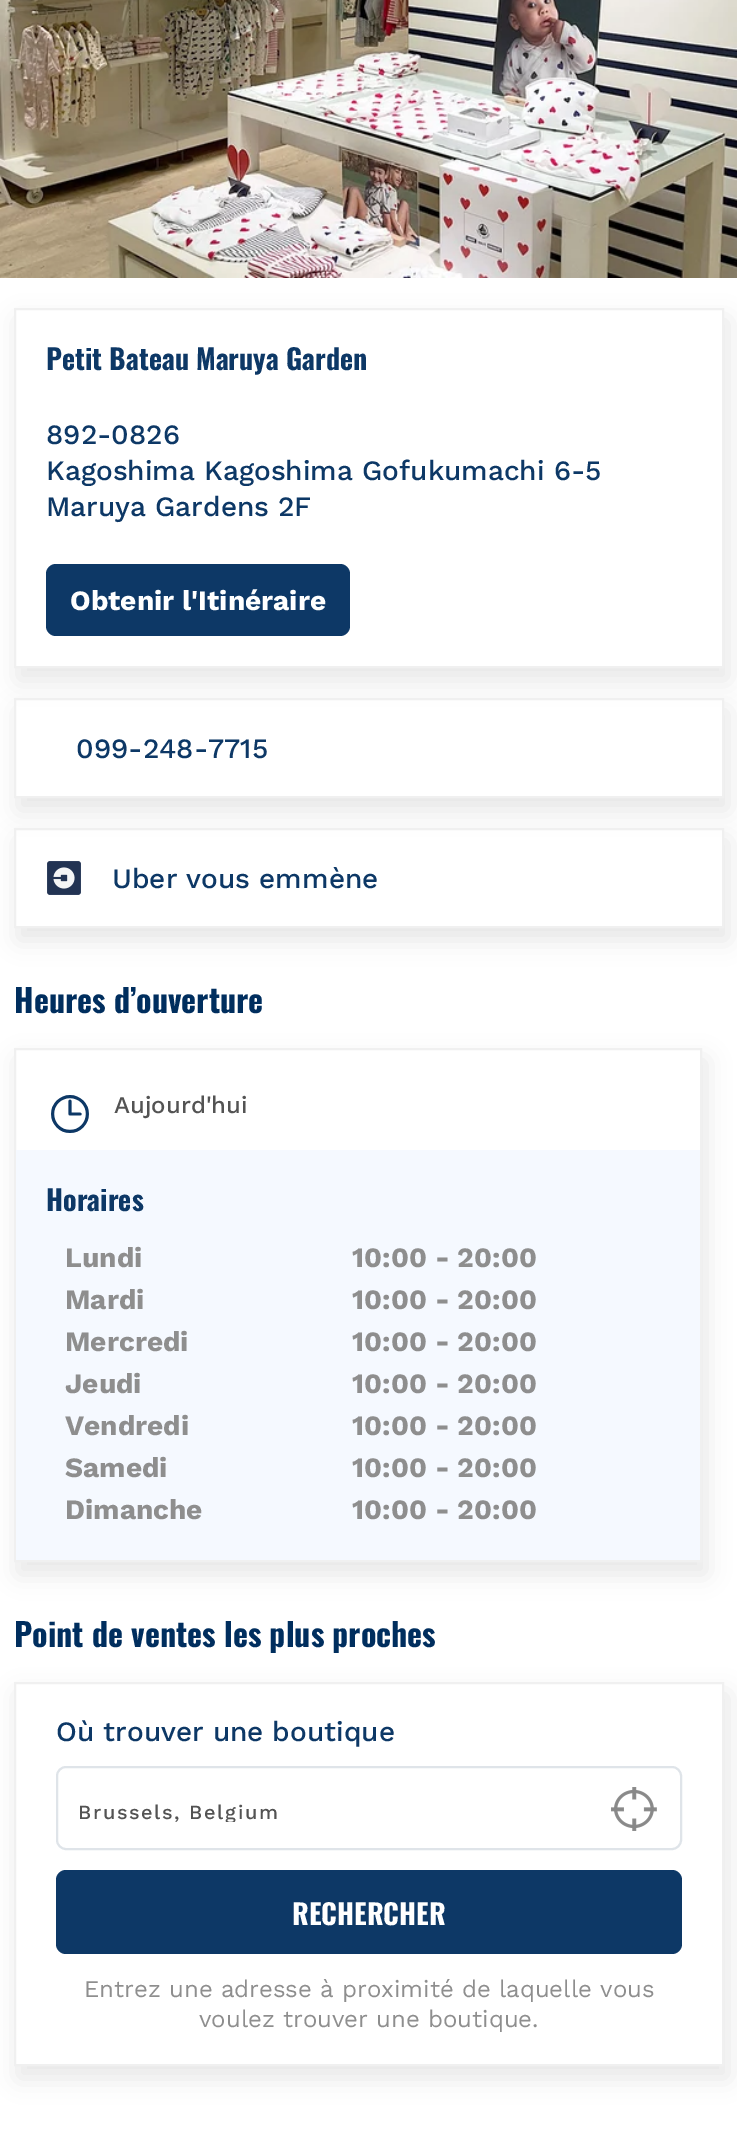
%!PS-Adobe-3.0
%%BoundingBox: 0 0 737 2149
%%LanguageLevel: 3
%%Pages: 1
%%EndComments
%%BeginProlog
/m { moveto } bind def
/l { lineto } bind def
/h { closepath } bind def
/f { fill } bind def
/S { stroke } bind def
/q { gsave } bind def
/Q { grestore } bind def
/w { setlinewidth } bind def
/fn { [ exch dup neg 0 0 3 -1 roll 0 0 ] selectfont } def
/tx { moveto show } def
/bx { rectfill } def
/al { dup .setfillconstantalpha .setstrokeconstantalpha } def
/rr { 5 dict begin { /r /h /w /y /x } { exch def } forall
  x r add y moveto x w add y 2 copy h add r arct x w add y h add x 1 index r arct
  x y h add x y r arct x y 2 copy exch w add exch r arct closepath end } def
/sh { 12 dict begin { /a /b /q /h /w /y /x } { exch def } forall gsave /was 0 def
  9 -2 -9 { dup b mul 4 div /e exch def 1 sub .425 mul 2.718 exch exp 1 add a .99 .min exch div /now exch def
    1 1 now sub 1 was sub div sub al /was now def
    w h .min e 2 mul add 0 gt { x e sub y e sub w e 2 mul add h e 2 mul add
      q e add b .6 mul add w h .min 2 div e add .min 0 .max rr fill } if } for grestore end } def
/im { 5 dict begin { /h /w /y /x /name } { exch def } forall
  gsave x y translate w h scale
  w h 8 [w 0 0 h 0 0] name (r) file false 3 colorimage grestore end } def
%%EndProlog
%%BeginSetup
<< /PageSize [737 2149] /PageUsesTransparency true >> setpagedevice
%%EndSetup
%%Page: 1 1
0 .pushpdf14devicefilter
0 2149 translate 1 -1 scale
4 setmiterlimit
1 setgray
0 0 737 2149 bx
(image0.raw) 0 0 737 278 im
q
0 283 m 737 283 l 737 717 l 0 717 l h 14 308 m 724 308 l 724 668 l 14 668 l h eoclip newpath
0.051 setgray
18 320 710 360 0 12 0.1 sh
Q
0.941 setgray
2 w
15 309 708 358 rectstroke
/Oswald-Bold 28 fn
0.051 0.22 0.4 setrgbcolor
(Petit Bateau Maruya Garden) 46 370 tx
/WorkSans-Medium 28 fn
(892-0826) 46 444 tx
(Kagoshima Kagoshima Gofukumachi 6-5) 46 480 tx
(Maruya Gardens 2F) 46 516 tx
46 564 304 72 10 rr f
/WorkSans-Bold 28 fn
1 setgray
(Obtenir l'Itinéraire) 70 610 tx
q
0 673 m 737 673 l 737 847 l 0 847 l h 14 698 m 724 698 l 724 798 l 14 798 l h eoclip newpath
0 setgray
18 710 710 100 0 12 0.1 sh
Q
0.941 setgray
15 699 708 98 rectstroke
/WorkSans-Medium 28 fn
0.051 0.22 0.4 setrgbcolor
(099-248-7715) 76 758 tx
q
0 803 m 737 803 l 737 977 l 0 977 l h 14 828 m 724 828 l 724 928 l 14 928 l h eoclip newpath
0 setgray
18 840 710 100 0 12 0.1 sh
Q
0.941 setgray
15 829 708 98 rectstroke
(image1.raw) 47 861 34 34 im
0.051 0.22 0.4 setrgbcolor
(Uber vous emmène) 112 888 tx
/Oswald-Bold 32 fn
0 0.18 0.369 setrgbcolor
(Heures d’ouverture) 14 1013 tx
q
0 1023 m 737 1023 l 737 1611 l 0 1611 l h 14 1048 m 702 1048 l 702 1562 l 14 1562 l h eoclip newpath
0.051 setgray
18 1060 688 514 0 12 0.1 sh
Q
0.941 setgray
15 1049 686 512 rectstroke
(image2.raw) 51 1095 38 38 im
/WorkSans-Medium 24 fn
0.325 setgray
(Aujourd'hui) 114 1113 tx
0.961 0.976 1 setrgbcolor
16 1150 684 410 bx
/Oswald-Bold 28 fn
0.051 0.22 0.4 setrgbcolor
(Horaires) 46 1211 tx
/WorkSans-Bold 28 fn
0.557 setgray
(Lundi) 65 1267 tx
(10:00 - 20:00) 352 1267 tx
(Mardi) 65 1309 tx
(10:00 - 20:00) 352 1309 tx
(Mercredi) 65 1351 tx
(10:00 - 20:00) 352 1351 tx
(Jeudi) 65 1393 tx
(10:00 - 20:00) 352 1393 tx
(Vendredi) 65 1435 tx
(10:00 - 20:00) 352 1435 tx
(Samedi) 65 1477 tx
(10:00 - 20:00) 352 1477 tx
(Dimanche) 65 1519 tx
(10:00 - 20:00) 352 1519 tx
/Oswald-Bold 32 fn
0 0.18 0.369 setrgbcolor
(Point de ventes les plus proches) 14 1647 tx
q
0 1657 m 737 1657 l 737 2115 l 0 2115 l h 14 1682 m 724 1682 l 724 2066 l 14 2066 l h eoclip newpath
0.051 setgray
18 1694 710 384 0 12 0.1 sh
Q
0.941 setgray
15 1683 708 382 rectstroke
/WorkSans-Medium 28 fn
0.051 0.22 0.4 setrgbcolor
(Où trouver une boutique) 56 1741 tx
0.875 0.894 0.914 setrgbcolor
57 1767 624 82 9 rr S
q
78 1800 512 22 rectclip
/WorkSans-Medium 20 fn
0.325 setgray
78 1819 m 1.6 0 (Brussels, Belgium) ashow
Q
(image3.raw) 611 1787 46 44 im
0.051 0.22 0.4 setrgbcolor
56 1870 626 84 10 rr f
/Oswald-Bold 28 fn
1 setgray
(RECHERCHER) 292 1925 tx
/WorkSans-Regular 24 fn
0.557 setgray
(Entrez une adresse à proximité de laquelle vous) 84 1997 tx
(voulez trouver une boutique.) 199 2027 tx
.poppdf14devicefilter showpage
%%EOF
